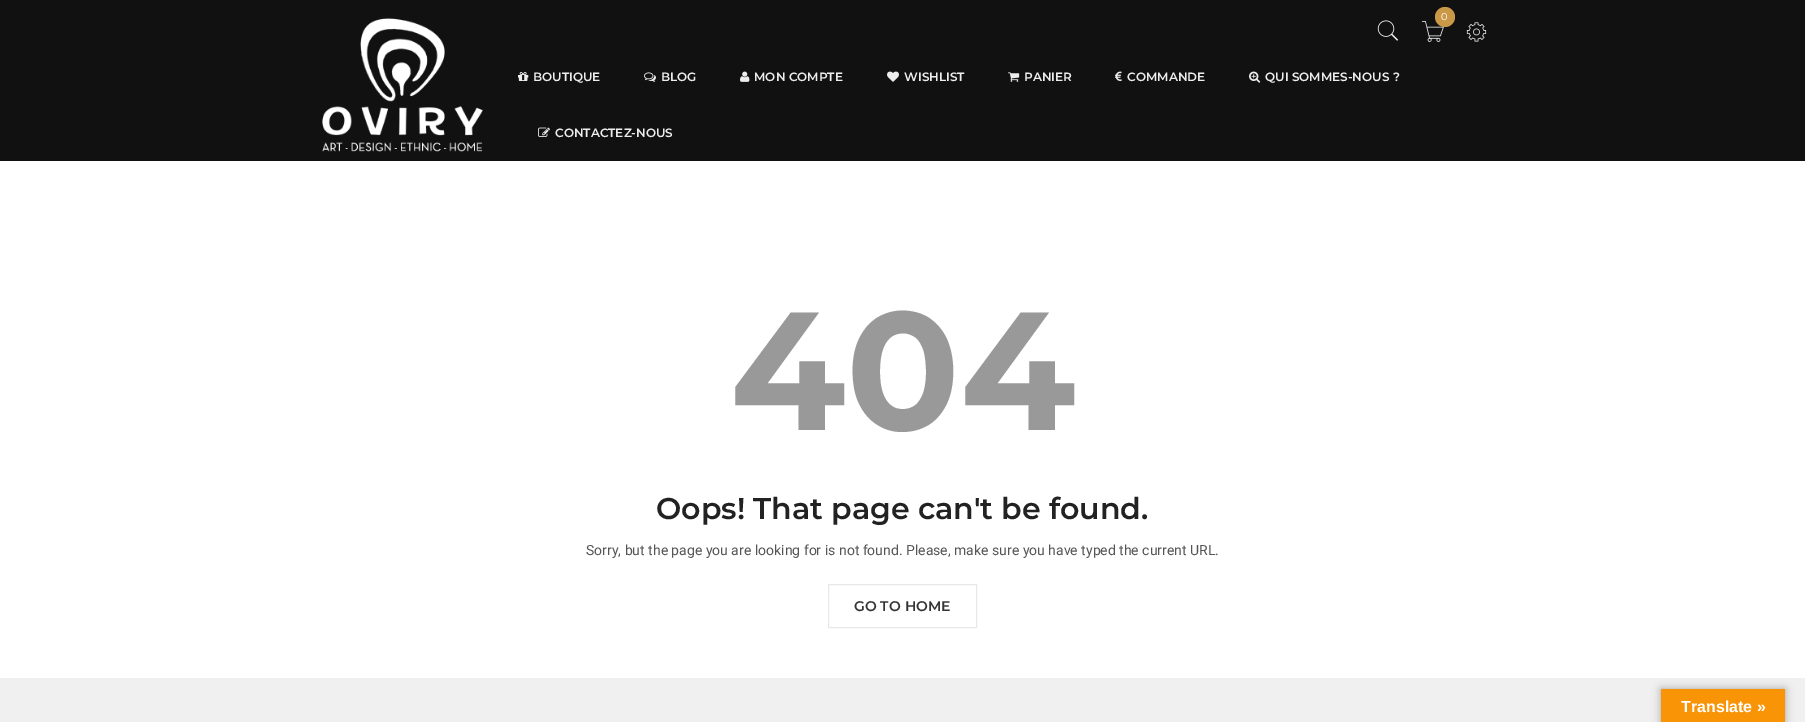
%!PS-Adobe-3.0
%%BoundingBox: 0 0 1805 722
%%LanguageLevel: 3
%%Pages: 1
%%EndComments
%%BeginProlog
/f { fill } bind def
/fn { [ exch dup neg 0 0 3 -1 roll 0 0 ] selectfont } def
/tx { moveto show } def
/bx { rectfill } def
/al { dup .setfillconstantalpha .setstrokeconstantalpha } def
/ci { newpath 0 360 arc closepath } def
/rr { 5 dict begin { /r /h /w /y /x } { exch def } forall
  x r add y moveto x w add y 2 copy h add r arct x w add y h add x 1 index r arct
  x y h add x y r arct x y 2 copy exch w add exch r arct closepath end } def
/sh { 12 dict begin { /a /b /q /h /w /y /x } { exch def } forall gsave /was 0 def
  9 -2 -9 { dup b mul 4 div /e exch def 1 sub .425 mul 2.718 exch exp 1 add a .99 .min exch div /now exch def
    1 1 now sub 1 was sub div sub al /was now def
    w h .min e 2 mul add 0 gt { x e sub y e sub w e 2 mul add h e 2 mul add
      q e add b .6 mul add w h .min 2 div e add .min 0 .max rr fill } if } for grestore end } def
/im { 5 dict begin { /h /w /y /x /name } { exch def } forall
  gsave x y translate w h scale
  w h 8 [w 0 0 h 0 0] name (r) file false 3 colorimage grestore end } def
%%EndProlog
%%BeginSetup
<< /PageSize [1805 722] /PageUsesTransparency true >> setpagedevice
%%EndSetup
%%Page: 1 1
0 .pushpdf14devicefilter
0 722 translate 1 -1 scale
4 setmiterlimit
1 setgray
0 0 1805 722 bx
0.067 setgray
0 0 1805 161 bx
(image0.raw) 322 18 161 134 im
(image1.raw) 1422 21 22 21 im
0.788 0.6 0.278 setrgbcolor
1445 17 10 ci f
/Montserrat-Regular 10 fn
1 setgray
(0) 1441 20 tx
(image2.raw) 1377 20 22 21 im
(image3.raw) 1466 22 21 20 im
(image4.raw) 518 72 11 9 im
/Montserrat-SemiBold 12 fn
0.933 setgray
(BOUTIQUE) 533 81 tx
(image5.raw) 644 72 12 10 im
(BLOG) 661 81 tx
(image6.raw) 740 71 10 11 im
(MON COMPTE) 754 81 tx
(image7.raw) 887 71 12 11 im
(WISHLIST) 904 81 tx
(image8.raw) 1008 72 12 10 im
(PANIER) 1024 81 tx
(image9.raw) 1115 71 7 10 im
(COMMANDE) 1127 81 tx
(image10.raw) 1249 71 12 12 im
(QUI SOMMES-NOUS ?) 1265 81 tx
(image11.raw) 538 127 12 10 im
(CONTACTEZ-NOUS) 555 137 tx
/Montserrat-Bold 168 fn
0.6 setgray
(404) 730 430 tx
/Montserrat-SemiBold 30 fn
0.133 setgray
(Oops! That page can't be found.) 656 519 tx
/Roboto-Regular 14 fn
0.333 setgray
(Sorry, but the page you are looking for is not found. Please, make sure you have typed the current URL.) 586 555 tx
0.91 setgray
828.5 584.5 148 43 rectstroke
/Montserrat-SemiBold 14 fn
0.204 setgray
(GO TO HOME) 854 611 tx
0.941 setgray
0 678 1805 44 bx
0 setgray
1661 689 124 33 0 4.5 0.3 sh
0.973 0.58 0.024 setrgbcolor
1661 689 124 33 bx
/LiberationSans-Bold 16 fn
1 setgray
(Translate ») 1681 712 tx
.poppdf14devicefilter showpage
%%EOF
